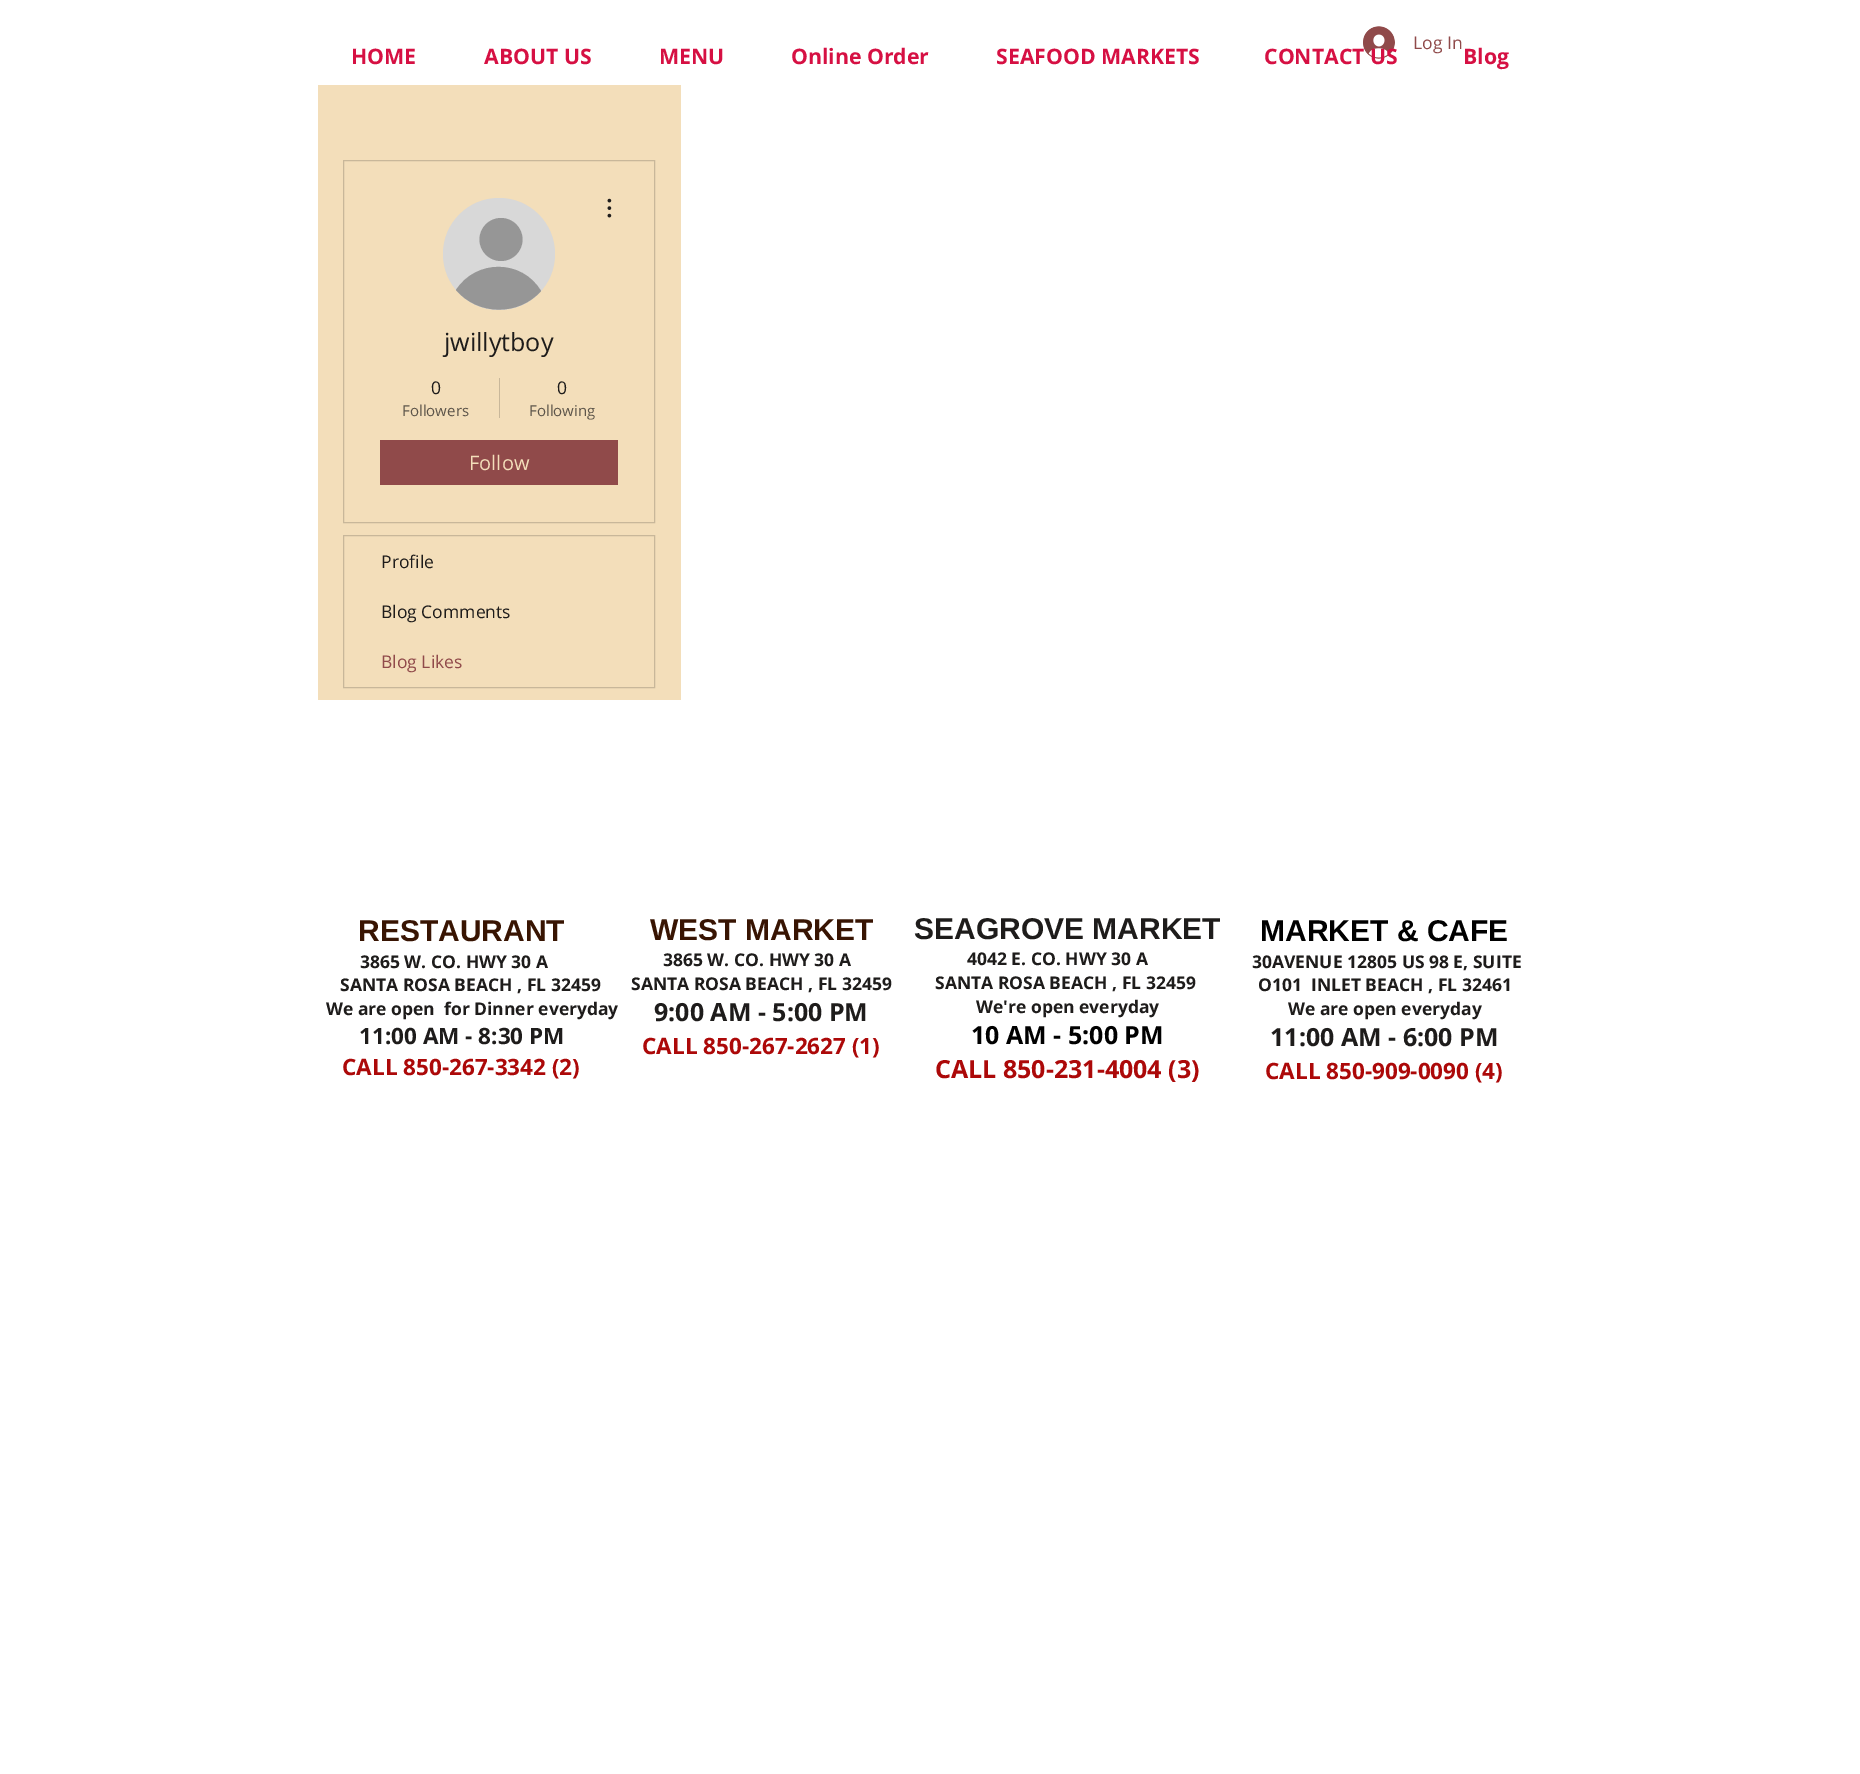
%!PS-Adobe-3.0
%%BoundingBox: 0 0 1860 1774
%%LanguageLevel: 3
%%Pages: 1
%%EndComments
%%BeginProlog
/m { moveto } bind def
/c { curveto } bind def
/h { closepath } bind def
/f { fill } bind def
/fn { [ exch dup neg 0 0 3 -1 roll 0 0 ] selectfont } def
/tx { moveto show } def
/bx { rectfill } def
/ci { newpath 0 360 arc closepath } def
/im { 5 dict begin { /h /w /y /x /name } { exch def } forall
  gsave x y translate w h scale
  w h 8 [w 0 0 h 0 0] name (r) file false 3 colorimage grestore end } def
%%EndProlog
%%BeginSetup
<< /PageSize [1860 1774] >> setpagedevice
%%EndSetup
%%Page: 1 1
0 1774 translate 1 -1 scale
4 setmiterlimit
1 setgray
0 0 1860 1774 bx
(image0.raw) 1363 26 32 33 im
/OpenSans-Regular 17.5 fn
0.565 0.29 0.29 setrgbcolor
(Log In) 1413 49 tx
/OpenSans-Bold 21.25 fn
0.839 0.063 0.263 setrgbcolor
(HOME) 351 64 tx
(ABOUT US) 484 64 tx
(MENU) 659 64 tx
(Online Order) 791 64 tx
(SEAFOOD MARKETS) 996 64 tx
(CONTACT US) 1264 64 tx
(Blog) 1463 64 tx
0.953 0.871 0.729 setrgbcolor
318 85 363 615 bx
0.784 0.718 0.604 setrgbcolor
343.5 160.5 311 362 rectstroke
0.847 setgray
499 254 56 ci f
0.588 setgray
501 239.5 21.5 ci f
541 291 m 519 316 478 316 456 290 c 476 259 522 259 541 291 c h f
(image1.raw) 607 198 5 20 im
/OpenSans-Regular 25 fn
0.118 0.11 0.106 setrgbcolor
(jwillytboy) 444 351 tx
/OpenSans-Regular 17.5 fn
(0) 431 394 tx
/OpenSans-Regular 15 fn
0.369 0.337 0.294 setrgbcolor
(Followers) 402 416 tx
0.784 0.718 0.604 setrgbcolor
499 378 1 40 bx
/OpenSans-Regular 17.5 fn
0.118 0.11 0.106 setrgbcolor
(0) 557 394 tx
/OpenSans-Regular 15 fn
0.369 0.337 0.294 setrgbcolor
(Following) 529 416 tx
0.565 0.29 0.29 setrgbcolor
380 440 238 45 bx
/OpenSans-Regular 20 fn
0.953 0.871 0.729 setrgbcolor
(Follow) 469 470 tx
0.784 0.718 0.604 setrgbcolor
343.5 535.5 311 152 rectstroke
/OpenSans-Regular 17.5 fn
0.118 0.11 0.106 setrgbcolor
(Profile) 381 568 tx
(Blog Comments) 381 618 tx
0.565 0.29 0.29 setrgbcolor
(Blog Likes) 381 668 tx
/LiberationSans-Bold 30 fn
0.22 0.078 0.008 setrgbcolor
(RESTAURANT) 358 941 tx
/OpenSans-Bold 17.5 fn
0.118 0.11 0.106 setrgbcolor
(3865 W. CO. HWY 30 A) 360 968 tx
(SANTA ROSA BEACH , FL 32459) 340 991 tx
(We are open  for Dinner everyday) 326 1015 tx
/OpenSans-Bold 22.5 fn
(11:00 AM - 8:30 PM) 359 1044 tx
0.675 0.035 0.035 setrgbcolor
(CALL 850-267-3342 \(2\)) 342 1075 tx
/LiberationSans-Bold 30 fn
0.22 0.078 0.008 setrgbcolor
(WEST MARKET) 650 940 tx
/OpenSans-Bold 17.5 fn
0.118 0.11 0.106 setrgbcolor
(3865 W. CO. HWY 30 A) 663 966 tx
(SANTA ROSA BEACH , FL 32459) 631 990 tx
/OpenSans-Bold 25 fn
(9:00 AM - 5:00 PM) 654 1021 tx
/OpenSans-Bold 22.5 fn
0.675 0.035 0.035 setrgbcolor
(CALL 850-267-2627 \(1\)) 642 1054 tx
/LiberationSans-Bold 30 fn
0.118 0.11 0.106 setrgbcolor
(SEAGROVE MARKET) 914 939 tx
/OpenSans-Bold 17.5 fn
(4042 E. CO. HWY 30 A) 967 965 tx
(SANTA ROSA BEACH , FL 32459) 935 989 tx
(We're open everyday) 976 1013 tx
/OpenSans-Bold 25 fn
0 setgray
(10 AM - 5:00 PM) 971 1044 tx
0.675 0.035 0.035 setrgbcolor
(CALL 850-231-4004 \(3\)) 935 1078 tx
/LiberationSans-Bold 30 fn
0 setgray
(MARKET & CAFE) 1260 941 tx
/OpenSans-Bold 17.5 fn
0.118 0.11 0.106 setrgbcolor
(30AVENUE 12805 US 98 E, SUITE) 1252 968 tx
(O101  INLET BEACH , FL 32461) 1258 991 tx
(We are open everyday) 1288 1015 tx
/OpenSans-Bold 25 fn
(11:00 AM - 6:00 PM) 1270 1046 tx
/OpenSans-Bold 22.5 fn
0.675 0.035 0.035 setrgbcolor
(CALL 850-909-0090 \(4\)) 1265 1079 tx
showpage
%%EOF
